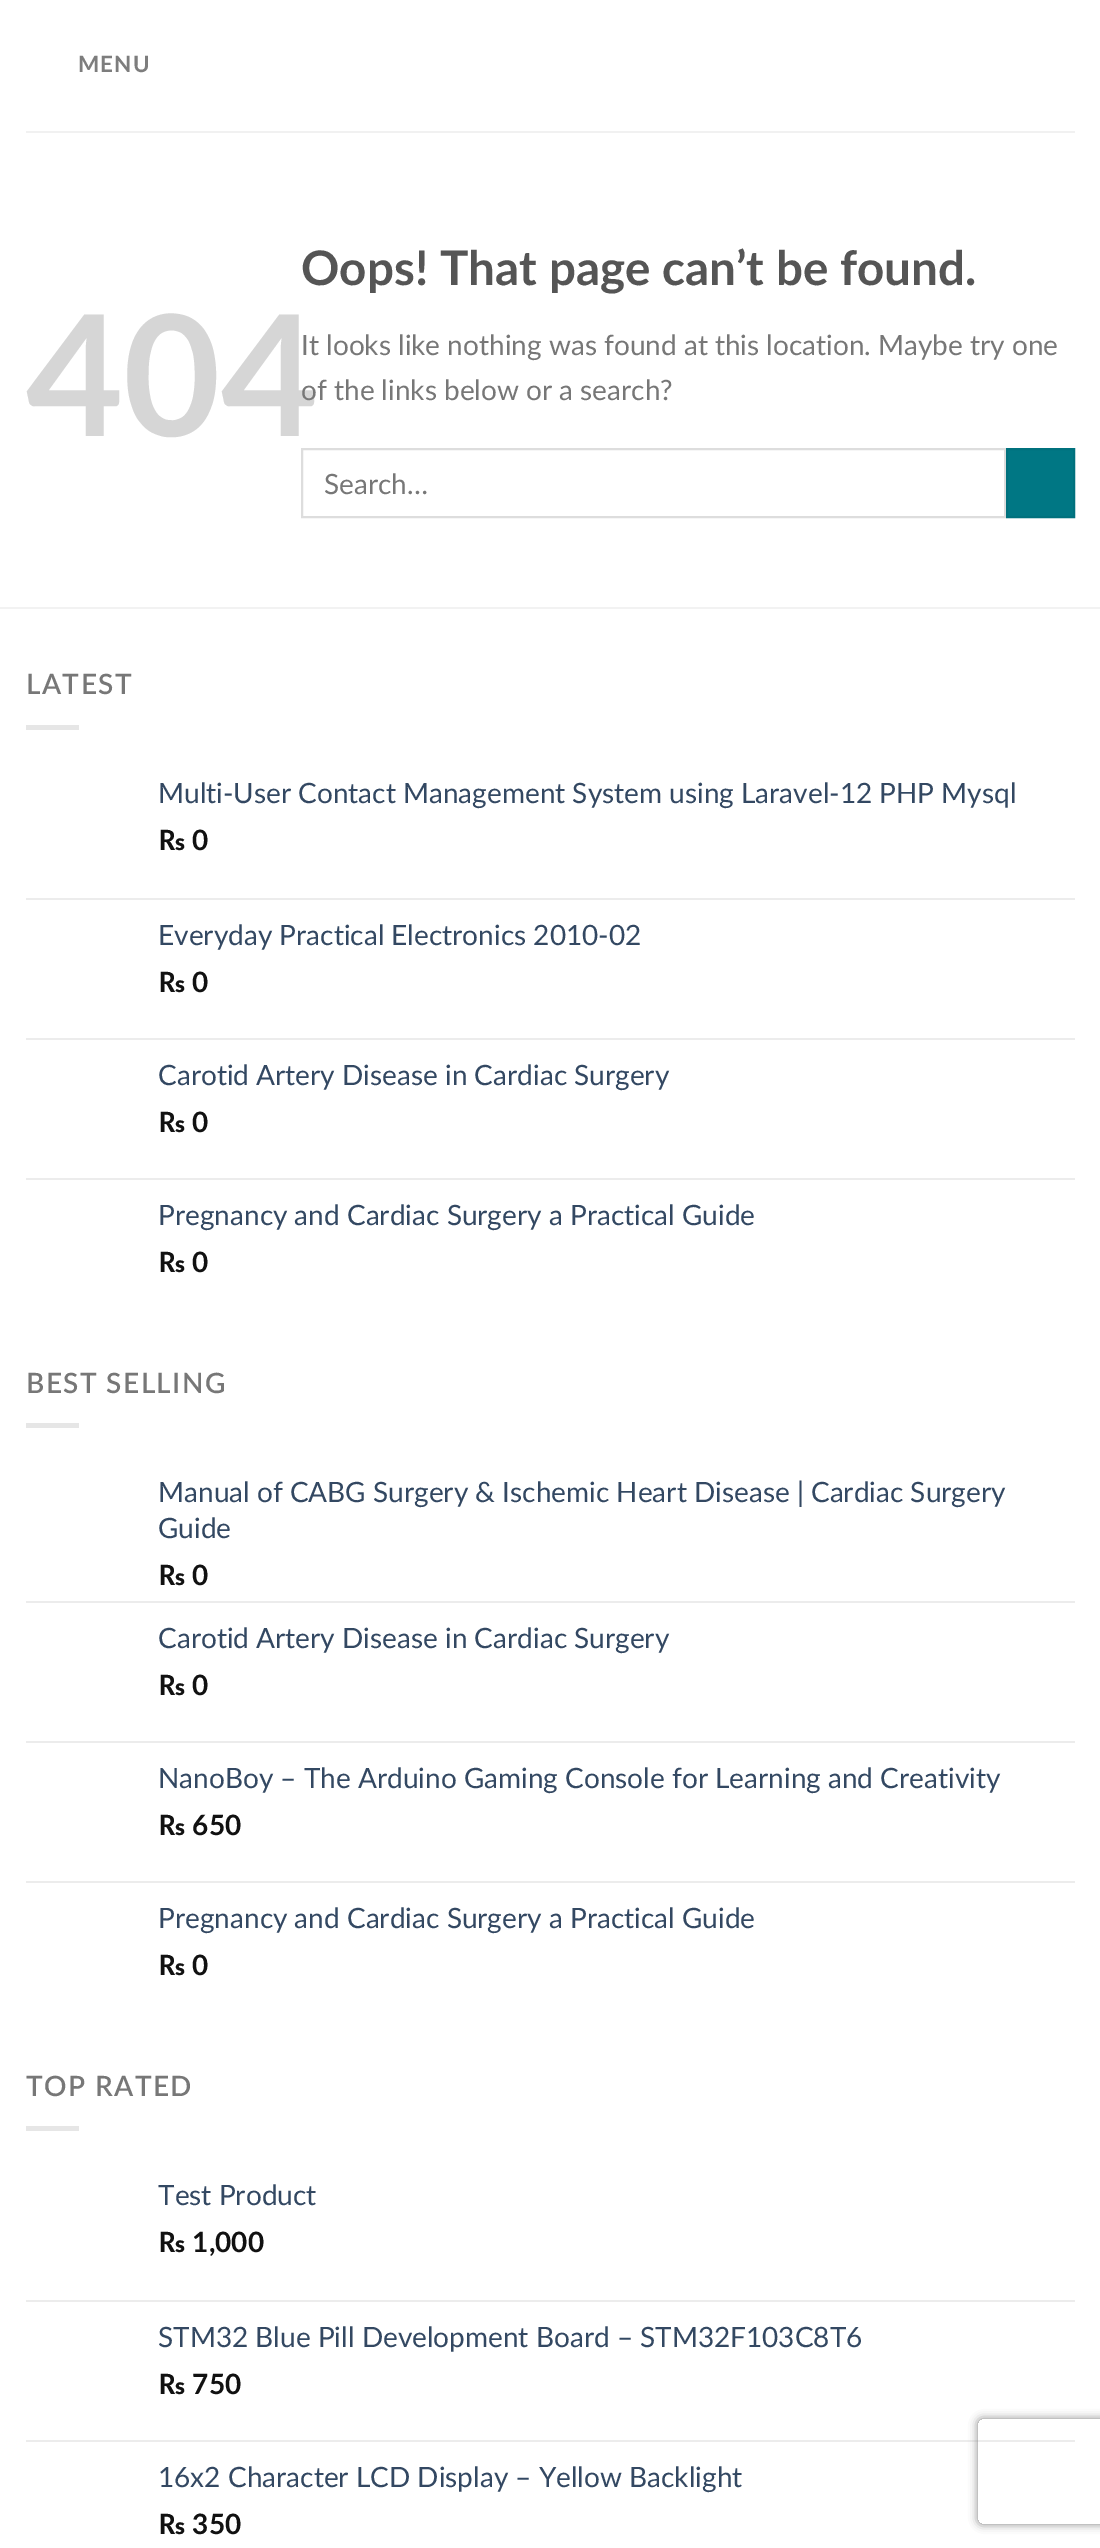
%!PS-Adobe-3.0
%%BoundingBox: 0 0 1100 2548
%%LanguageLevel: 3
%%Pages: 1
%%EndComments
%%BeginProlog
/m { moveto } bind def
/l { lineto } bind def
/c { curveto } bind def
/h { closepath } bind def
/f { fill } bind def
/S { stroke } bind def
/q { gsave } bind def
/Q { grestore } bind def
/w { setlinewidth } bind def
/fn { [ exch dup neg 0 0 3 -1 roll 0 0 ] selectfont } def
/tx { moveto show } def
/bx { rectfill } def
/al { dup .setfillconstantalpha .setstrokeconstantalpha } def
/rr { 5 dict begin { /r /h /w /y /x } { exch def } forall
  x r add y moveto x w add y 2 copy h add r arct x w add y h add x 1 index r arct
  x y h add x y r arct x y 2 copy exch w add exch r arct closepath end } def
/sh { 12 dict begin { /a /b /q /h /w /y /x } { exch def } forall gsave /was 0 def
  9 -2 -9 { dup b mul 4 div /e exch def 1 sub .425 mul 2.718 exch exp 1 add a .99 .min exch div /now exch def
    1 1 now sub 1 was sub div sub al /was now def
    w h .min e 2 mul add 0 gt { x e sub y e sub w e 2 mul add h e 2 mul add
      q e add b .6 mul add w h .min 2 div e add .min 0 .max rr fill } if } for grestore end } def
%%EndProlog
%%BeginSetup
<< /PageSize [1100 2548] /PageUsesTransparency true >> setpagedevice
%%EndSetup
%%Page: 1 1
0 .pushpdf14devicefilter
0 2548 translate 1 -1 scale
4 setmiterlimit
1 setgray
0 0 1100 2548 bx
/Lato-Bold 22.5 fn
0.49 setgray
78 72 m 1 0 (MENU) ashow
0.945 setgray
26 131 1049 2 bx
/Lato-Bold 168 fn
0.839 setgray
(404) 26 436 tx
/Lato-Bold 47.6 fn
0.333 setgray
(Oops! That page can’t be found.) 301 285 tx
/Lato-Regular 28 fn
0.467 setgray
(It looks like nothing was found at this location. Maybe try one) 301 355 tx
(of the links below or a search?) 301 400 tx
0.867 setgray
2 w
302 449 703 68 rectstroke
0.467 setgray
(Search…) 324 494 tx
0 0.467 0.518 setrgbcolor
1007 449 m 1074 449 l 1074 517 l 1007 517 l h q f Q
0 0.443 0.49 setrgbcolor
S
0.949 setgray
0 607 1100 2 bx
/Lato-SemiBold 28 fn
0.467 setgray
26 694 m 1.4 0 (LATEST) ashow
0.902 setgray
26 725 53 5 bx
/Lato-Regular 28 fn
0.2 0.282 0.384 setrgbcolor
(Multi-User Contact Management System using Laravel-12 PHP Mysql) 158 803 tx
/Lato-Bold 28 fn
0.067 setgray
(₨ 0) 158 850 tx
0.925 setgray
26 898 1049 2 bx
/Lato-Regular 28 fn
0.2 0.282 0.384 setrgbcolor
(Everyday Practical Electronics 2010-02) 158 945 tx
/Lato-Bold 28 fn
0.067 setgray
(₨ 0) 158 992 tx
0.925 setgray
26 1038 1049 2 bx
/Lato-Regular 28 fn
0.2 0.282 0.384 setrgbcolor
(Carotid Artery Disease in Cardiac Surgery) 158 1085 tx
/Lato-Bold 28 fn
0.067 setgray
(₨ 0) 158 1132 tx
0.925 setgray
26 1178 1049 2 bx
/Lato-Regular 28 fn
0.2 0.282 0.384 setrgbcolor
(Pregnancy and Cardiac Surgery a Practical Guide) 158 1225 tx
/Lato-Bold 28 fn
0.067 setgray
(₨ 0) 158 1272 tx
/Lato-SemiBold 28 fn
0.467 setgray
26 1393 m 1.4 0 (BEST SELLING) ashow
0.902 setgray
26 1423 53 5 bx
/Lato-Regular 28 fn
0.2 0.282 0.384 setrgbcolor
(Manual of CABG Surgery & Ischemic Heart Disease | Cardiac Surgery) 158 1502 tx
(Guide) 158 1538 tx
/Lato-Bold 28 fn
0.067 setgray
(₨ 0) 158 1585 tx
0.925 setgray
26 1601 1049 2 bx
/Lato-Regular 28 fn
0.2 0.282 0.384 setrgbcolor
(Carotid Artery Disease in Cardiac Surgery) 158 1648 tx
/Lato-Bold 28 fn
0.067 setgray
(₨ 0) 158 1695 tx
0.925 setgray
26 1741 1049 2 bx
/Lato-Regular 28 fn
0.2 0.282 0.384 setrgbcolor
(NanoBoy – The Arduino Gaming Console for Learning and Creativity) 158 1788 tx
/Lato-Bold 28 fn
0.067 setgray
(₨ 650) 158 1835 tx
0.925 setgray
26 1881 1049 2 bx
/Lato-Regular 28 fn
0.2 0.282 0.384 setrgbcolor
(Pregnancy and Cardiac Surgery a Practical Guide) 158 1928 tx
/Lato-Bold 28 fn
0.067 setgray
(₨ 0) 158 1975 tx
/Lato-SemiBold 28 fn
0.467 setgray
26 2096 m 1.4 0 (TOP RATED) ashow
0.902 setgray
26 2126 53 5 bx
/Lato-Regular 28 fn
0.2 0.282 0.384 setrgbcolor
(Test Product) 158 2205 tx
/Lato-Bold 28 fn
0.067 setgray
(₨ 1,000) 158 2252 tx
0.925 setgray
26 2300 1049 2 bx
/Lato-Regular 28 fn
0.2 0.282 0.384 setrgbcolor
(STM32 Blue Pill Development Board – STM32F103C8T6) 158 2347 tx
/Lato-Bold 28 fn
0.067 setgray
(₨ 750) 158 2394 tx
0.925 setgray
26 2440 1049 2 bx
/Lato-Regular 28 fn
0.2 0.282 0.384 setrgbcolor
(16x2 Character LCD Display – Yellow Backlight) 158 2487 tx
/Lato-Bold 28 fn
0.067 setgray
(₨ 350) 158 2534 tx
q
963 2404 m 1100 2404 l 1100 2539 l 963 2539 l h 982 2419 m 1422 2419 l 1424 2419 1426 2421 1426 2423 c 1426 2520 l 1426 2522 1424 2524 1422 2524 c 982 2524 l 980 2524 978 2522 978 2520 c 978 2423 l 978 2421 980 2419 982 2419 c h eoclip newpath
0.502 setgray
978 2419 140 105 4 4.5 1 sh
Q
.poppdf14devicefilter showpage
%%EOF
